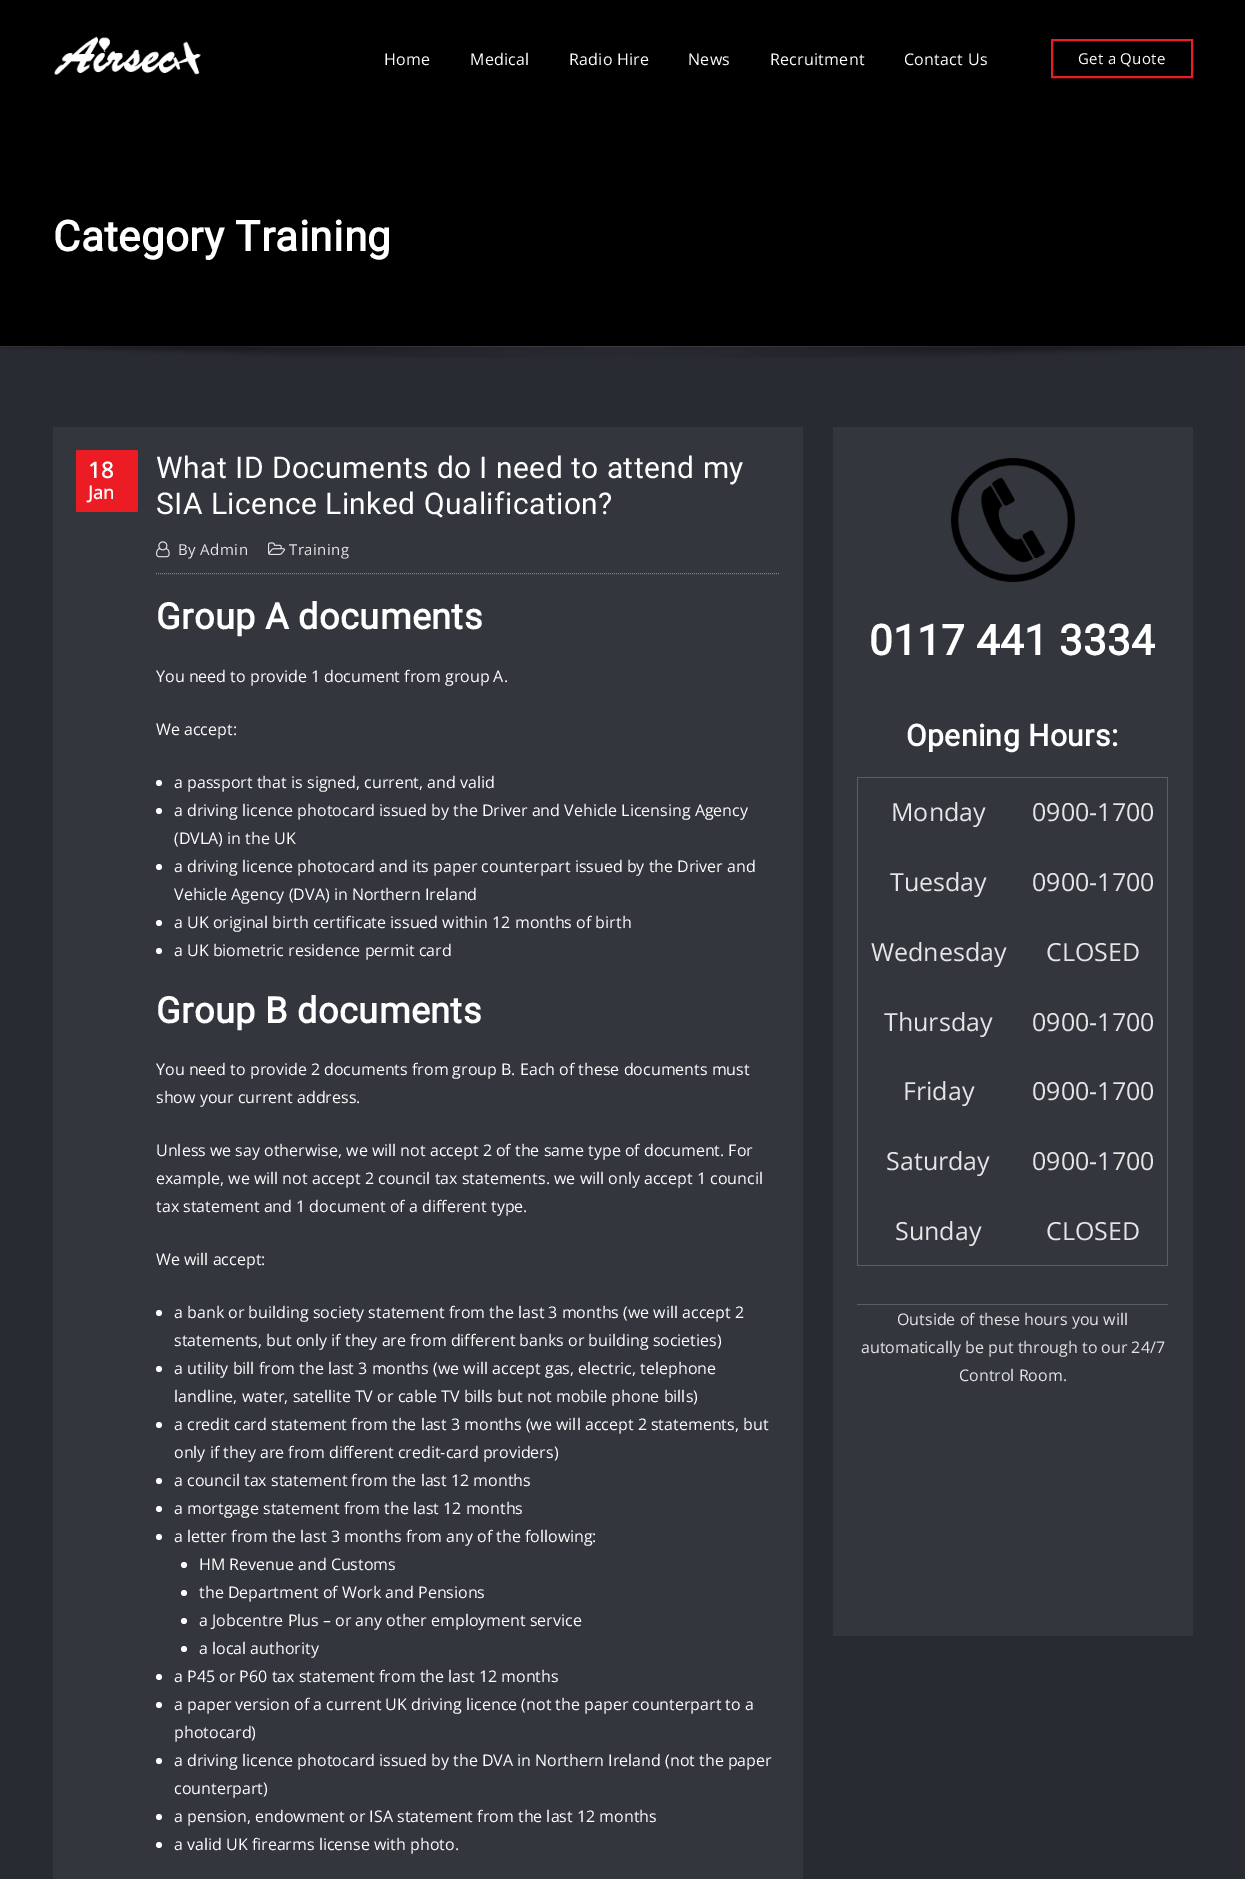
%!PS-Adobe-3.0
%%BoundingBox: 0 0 1245 1879
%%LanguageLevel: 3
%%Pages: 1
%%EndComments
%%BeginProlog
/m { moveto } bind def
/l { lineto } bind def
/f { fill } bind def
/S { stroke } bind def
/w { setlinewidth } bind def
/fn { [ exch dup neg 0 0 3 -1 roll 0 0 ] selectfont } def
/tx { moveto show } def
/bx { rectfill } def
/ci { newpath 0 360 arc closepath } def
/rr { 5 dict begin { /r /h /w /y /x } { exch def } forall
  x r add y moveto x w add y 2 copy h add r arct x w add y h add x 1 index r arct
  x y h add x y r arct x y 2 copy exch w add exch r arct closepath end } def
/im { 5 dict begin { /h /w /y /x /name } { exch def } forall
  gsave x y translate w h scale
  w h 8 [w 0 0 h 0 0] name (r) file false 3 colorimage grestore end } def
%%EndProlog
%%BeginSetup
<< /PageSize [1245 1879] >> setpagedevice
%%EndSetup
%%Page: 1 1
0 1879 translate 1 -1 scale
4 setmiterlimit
0.161 0.169 0.196 setrgbcolor
0 0 1245 1879 bx
0 setgray
0 0 1245 346 bx
(image0.raw) 54 36 147 39 im
/OpenSans-Regular 16 fn
1 setgray
384 65 m 0.25 0 (Home) ashow
470 65 m 0.25 0 (Medical) ashow
569 65 m 0.25 0 (Radio Hire) ashow
688 65 m 0.25 0 (News) ashow
770 65 m 0.25 0 (Recruitment) ashow
904 65 m 0.25 0 (Contact Us) ashow
0.925 0.11 0.141 setrgbcolor
2 w
1052 40 140 37 rectstroke
/OpenSans-Regular 15 fn
1 setgray
1078 64 m 0.25 0 (Get a Quote) ashow
/Roboto-Bold 42 fn
53 251 m 0.45 0 (Category Training) ashow
0.259 setgray
0 346 1245 1 bx
(image1.raw) 0 346 1245 12 im
0.204 0.212 0.243 setrgbcolor
53 427 750 1452 bx
0.925 0.11 0.141 setrgbcolor
76 450 62 62 2 rr f
/OpenSans-Bold 22 fn
1 setgray
(18) 88 478 tx
/OpenSans-Bold 18 fn
(Jan) 88 499 tx
/Roboto-Regular 30 fn
156 478 m 0.45 0 (What ID Documents do I need to attend my) ashow
156 514 m 0.45 0 (SIA Licence Linked Qualification?) ashow
0.51 0.514 0.522 setrgbcolor
1 w
[1 1] 0 setdash
156 573.5 m 780 573.5 l S
(image2.raw) 156 541 14 17 im
/OpenSans-Regular 15 fn
0.898 setgray
178 555 m 0.45 0 (By Admin) ashow
(image3.raw) 268 542 17 13 im
289 555 m 0.45 0 (Training) ashow
/Roboto-Bold 36 fn
1 setgray
156 629 m 0.45 0 (Group A documents) ashow
/OpenSans-Regular 16 fn
(You need to provide 1 document from group A.) 156 682 tx
(We accept:) 156 735 tx
159 783 3 ci f
(a passport that is signed, current, and valid) 174 788 tx
159 811 3 ci f
(a driving licence photocard issued by the Driver and Vehicle Licensing Agency) 174 816 tx
(\(DVLA\) in the UK) 174 844 tx
159 867 3 ci f
(a driving licence photocard and its paper counterpart issued by the Driver and) 174 872 tx
(Vehicle Agency \(DVA\) in Northern Ireland) 174 900 tx
159 923 3 ci f
(a UK original birth certificate issued within 12 months of birth) 174 928 tx
159 951 3 ci f
(a UK biometric residence permit card) 174 956 tx
/Roboto-Bold 36 fn
156 1023 m 0.45 0 (Group B documents) ashow
/OpenSans-Regular 16 fn
(You need to provide 2 documents from group B. Each of these documents must) 156 1075 tx
(show your current address.) 156 1103 tx
(Unless we say otherwise, we will not accept 2 of the same type of document. For) 156 1156 tx
(example, we will not accept 2 council tax statements. we will only accept 1 council) 156 1184 tx
(tax statement and 1 document of a different type.) 156 1212 tx
(We will accept:) 156 1265 tx
159 1313 3 ci f
(a bank or building society statement from the last 3 months \(we will accept 2) 174 1318 tx
(statements, but only if they are from different banks or building societies\)) 174 1346 tx
159 1369 3 ci f
(a utility bill from the last 3 months \(we will accept gas, electric, telephone) 174 1374 tx
(landline, water, satellite TV or cable TV bills but not mobile phone bills\)) 174 1402 tx
159 1425 3 ci f
(a credit card statement from the last 3 months \(we will accept 2 statements, but) 174 1430 tx
(only if they are from different credit-card providers\)) 174 1458 tx
159 1481 3 ci f
(a council tax statement from the last 12 months) 174 1486 tx
159 1509 3 ci f
(a mortgage statement from the last 12 months) 174 1514 tx
159 1537 3 ci f
(a letter from the last 3 months from any of the following:) 174 1542 tx
184 1565 3 ci f
(HM Revenue and Customs) 199 1570 tx
184 1593 3 ci f
(the Department of Work and Pensions) 199 1598 tx
184 1621 3 ci f
(a Jobcentre Plus – or any other employment service) 199 1626 tx
184 1649 3 ci f
(a local authority) 199 1654 tx
159 1677 3 ci f
(a P45 or P60 tax statement from the last 12 months) 174 1682 tx
159 1705 3 ci f
(a paper version of a current UK driving licence \(not the paper counterpart to a) 174 1710 tx
(photocard\)) 174 1738 tx
159 1761 3 ci f
(a driving licence photocard issued by the DVA in Northern Ireland \(not the paper) 174 1766 tx
(counterpart\)) 174 1794 tx
159 1817 3 ci f
(a pension, endowment or ISA statement from the last 12 months) 174 1822 tx
159 1845 3 ci f
(a valid UK firearms license with photo.) 174 1850 tx
0.204 0.212 0.243 setrgbcolor
833 427 360 1209 bx
(image4.raw) 951 458 124 124 im
/Roboto-Bold 42 fn
1 setgray
869 655 m 0.45 0 (0117 441 3334) ashow
/Roboto-Bold 30 fn
906 746 m 0.45 0 (Opening Hours:) ashow
0.357 0.365 0.392 setrgbcolor
857 1304 311 1 bx
857 777 311 1 bx
1167 777 1 489 bx
857 1265 311 1 bx
857 777 1 489 bx
/OpenSans-Regular 25 fn
0.898 setgray
(Monday) 891 821 tx
(0900-1700) 1032 821 tx
(Tuesday) 890 891 tx
(0900-1700) 1032 891 tx
(Wednesday) 871 961 tx
(CLOSED) 1046 961 tx
(Thursday) 884 1031 tx
(0900-1700) 1032 1031 tx
(Friday) 903 1100 tx
(0900-1700) 1032 1100 tx
(Saturday) 886 1170 tx
(0900-1700) 1032 1170 tx
(Sunday) 895 1240 tx
(CLOSED) 1046 1240 tx
/OpenSans-Regular 16 fn
(Outside of these hours you will) 897 1325 tx
(automatically be put through to our 24/7) 861 1353 tx
(Control Room.) 959 1381 tx
showpage
%%EOF
